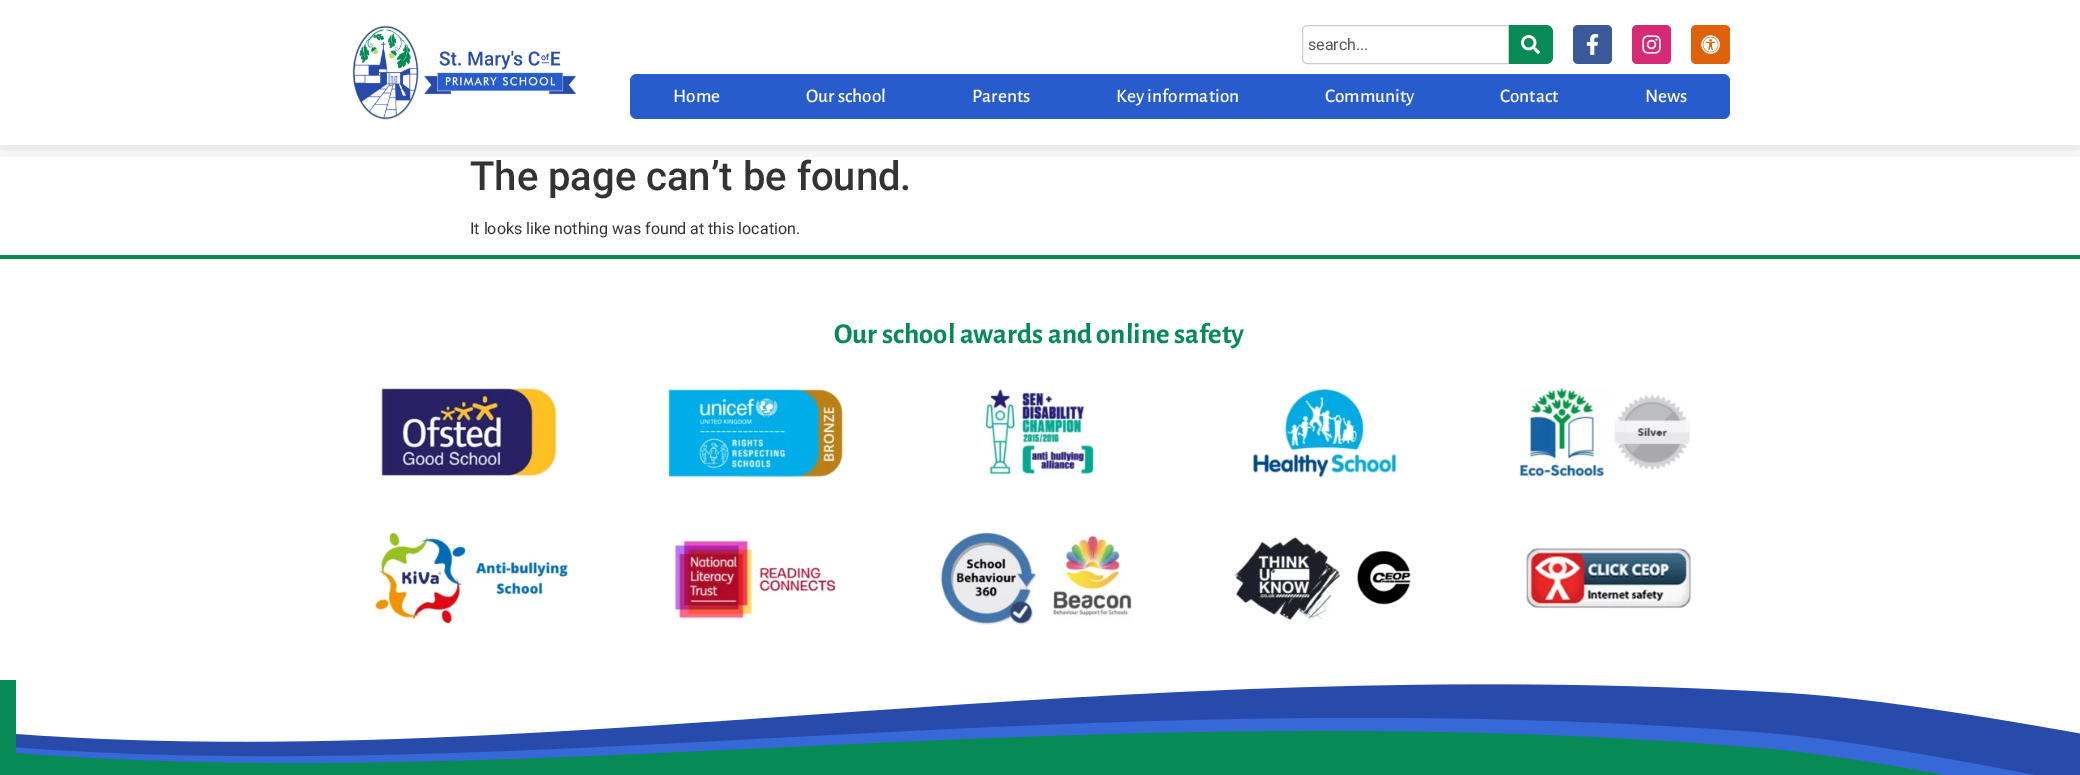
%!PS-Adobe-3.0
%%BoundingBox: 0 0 2080 775
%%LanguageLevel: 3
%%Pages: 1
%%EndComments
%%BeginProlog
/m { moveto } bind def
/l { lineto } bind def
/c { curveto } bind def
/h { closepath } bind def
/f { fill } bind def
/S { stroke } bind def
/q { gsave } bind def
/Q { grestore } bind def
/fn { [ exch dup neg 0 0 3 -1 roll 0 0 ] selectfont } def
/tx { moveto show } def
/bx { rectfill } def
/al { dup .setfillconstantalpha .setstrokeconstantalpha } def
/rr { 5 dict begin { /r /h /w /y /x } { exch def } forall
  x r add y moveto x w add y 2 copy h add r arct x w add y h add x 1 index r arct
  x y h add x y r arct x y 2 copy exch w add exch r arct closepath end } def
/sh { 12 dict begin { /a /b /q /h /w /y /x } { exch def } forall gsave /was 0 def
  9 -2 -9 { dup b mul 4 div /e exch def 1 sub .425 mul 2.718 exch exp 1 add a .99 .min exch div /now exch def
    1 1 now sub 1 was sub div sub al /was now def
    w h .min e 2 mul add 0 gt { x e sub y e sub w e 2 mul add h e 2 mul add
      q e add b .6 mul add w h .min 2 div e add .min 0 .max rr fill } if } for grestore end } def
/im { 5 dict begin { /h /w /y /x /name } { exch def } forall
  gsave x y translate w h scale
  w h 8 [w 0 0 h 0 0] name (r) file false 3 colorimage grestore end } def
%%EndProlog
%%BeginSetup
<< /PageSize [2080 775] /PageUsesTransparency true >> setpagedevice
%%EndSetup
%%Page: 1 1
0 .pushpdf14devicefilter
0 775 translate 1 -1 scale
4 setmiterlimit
1 setgray
0 0 2080 775 bx
q
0 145 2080 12 rectclip
0 setgray
0 -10 2080 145 0 12.5 0.5 sh
Q
(image0.raw) 352 25 225 95 im
0.804 setgray
1307 25.5 m 1508.5 25.5 l 1508.5 63.5 l 1307 63.5 l 1304.5 63.5 1302.5 61.5 1302.5 59 c 1302.5 30 l 1302.5 27.5 1304.5 25.5 1307 25.5 c h S
/Roboto-Regular 16 fn
0.318 0.349 0.384 setrgbcolor
(search...) 1308 50 tx
0.027 0.541 0.333 setrgbcolor
1509 25 m 1546 25 l 1550 25 1553 28 1553 32 c 1553 57 l 1553 61 1550 64 1546 64 c 1509 64 l h f
(image1.raw) 1521 35 19 19 im
0.231 0.349 0.596 setrgbcolor
1573 25 39 39 5 rr f
(image2.raw) 1586 34 13 21 im
0.839 0.161 0.463 setrgbcolor
1632 25 39 39 5 rr f
(image3.raw) 1642 35 19 19 im
0.875 0.38 0.047 setrgbcolor
1691 25 39 39 5 rr f
(image4.raw) 1701 35 19 19 im
0.157 0.361 0.8 setrgbcolor
630 74 1100 45 7 rr f
/AlegreyaSans-Medium 19.25 fn
1 setgray
(Home) 673 102 tx
(Our school) 806 102 tx
(Parents) 972 102 tx
(Key information) 1116 102 tx
(Community) 1325 102 tx
(Contact) 1500 102 tx
(News) 1645 102 tx
/Roboto-Medium 40 fn
0.2 setgray
(The page can’t be found.) 470 190 tx
/Roboto-Regular 16 fn
(It looks like nothing was found at this location.) 470 234 tx
0.027 0.541 0.333 setrgbcolor
0 255 2080 4 bx
/AlegreyaSans-Bold 28.75 fn
(Our school awards and online safety) 834 343 tx
(image5.raw) 379 386 179 91 im
(image6.raw) 667 386 177 92 im
(image7.raw) 983 389 112 88 im
(image8.raw) 1252 387 146 91 im
(image9.raw) 1519 387 171 91 im
(image10.raw) 374 532 196 97 im
(image11.raw) 673 538 163 82 im
(image12.raw) 937 531 196 94 im
(image13.raw) 1234 535 177 86 im
(image14.raw) 1526 548 165 61 im
0 680 1945 95 bx
(image15.raw) 16 680 2064 95 im
.poppdf14devicefilter showpage
%%EOF
